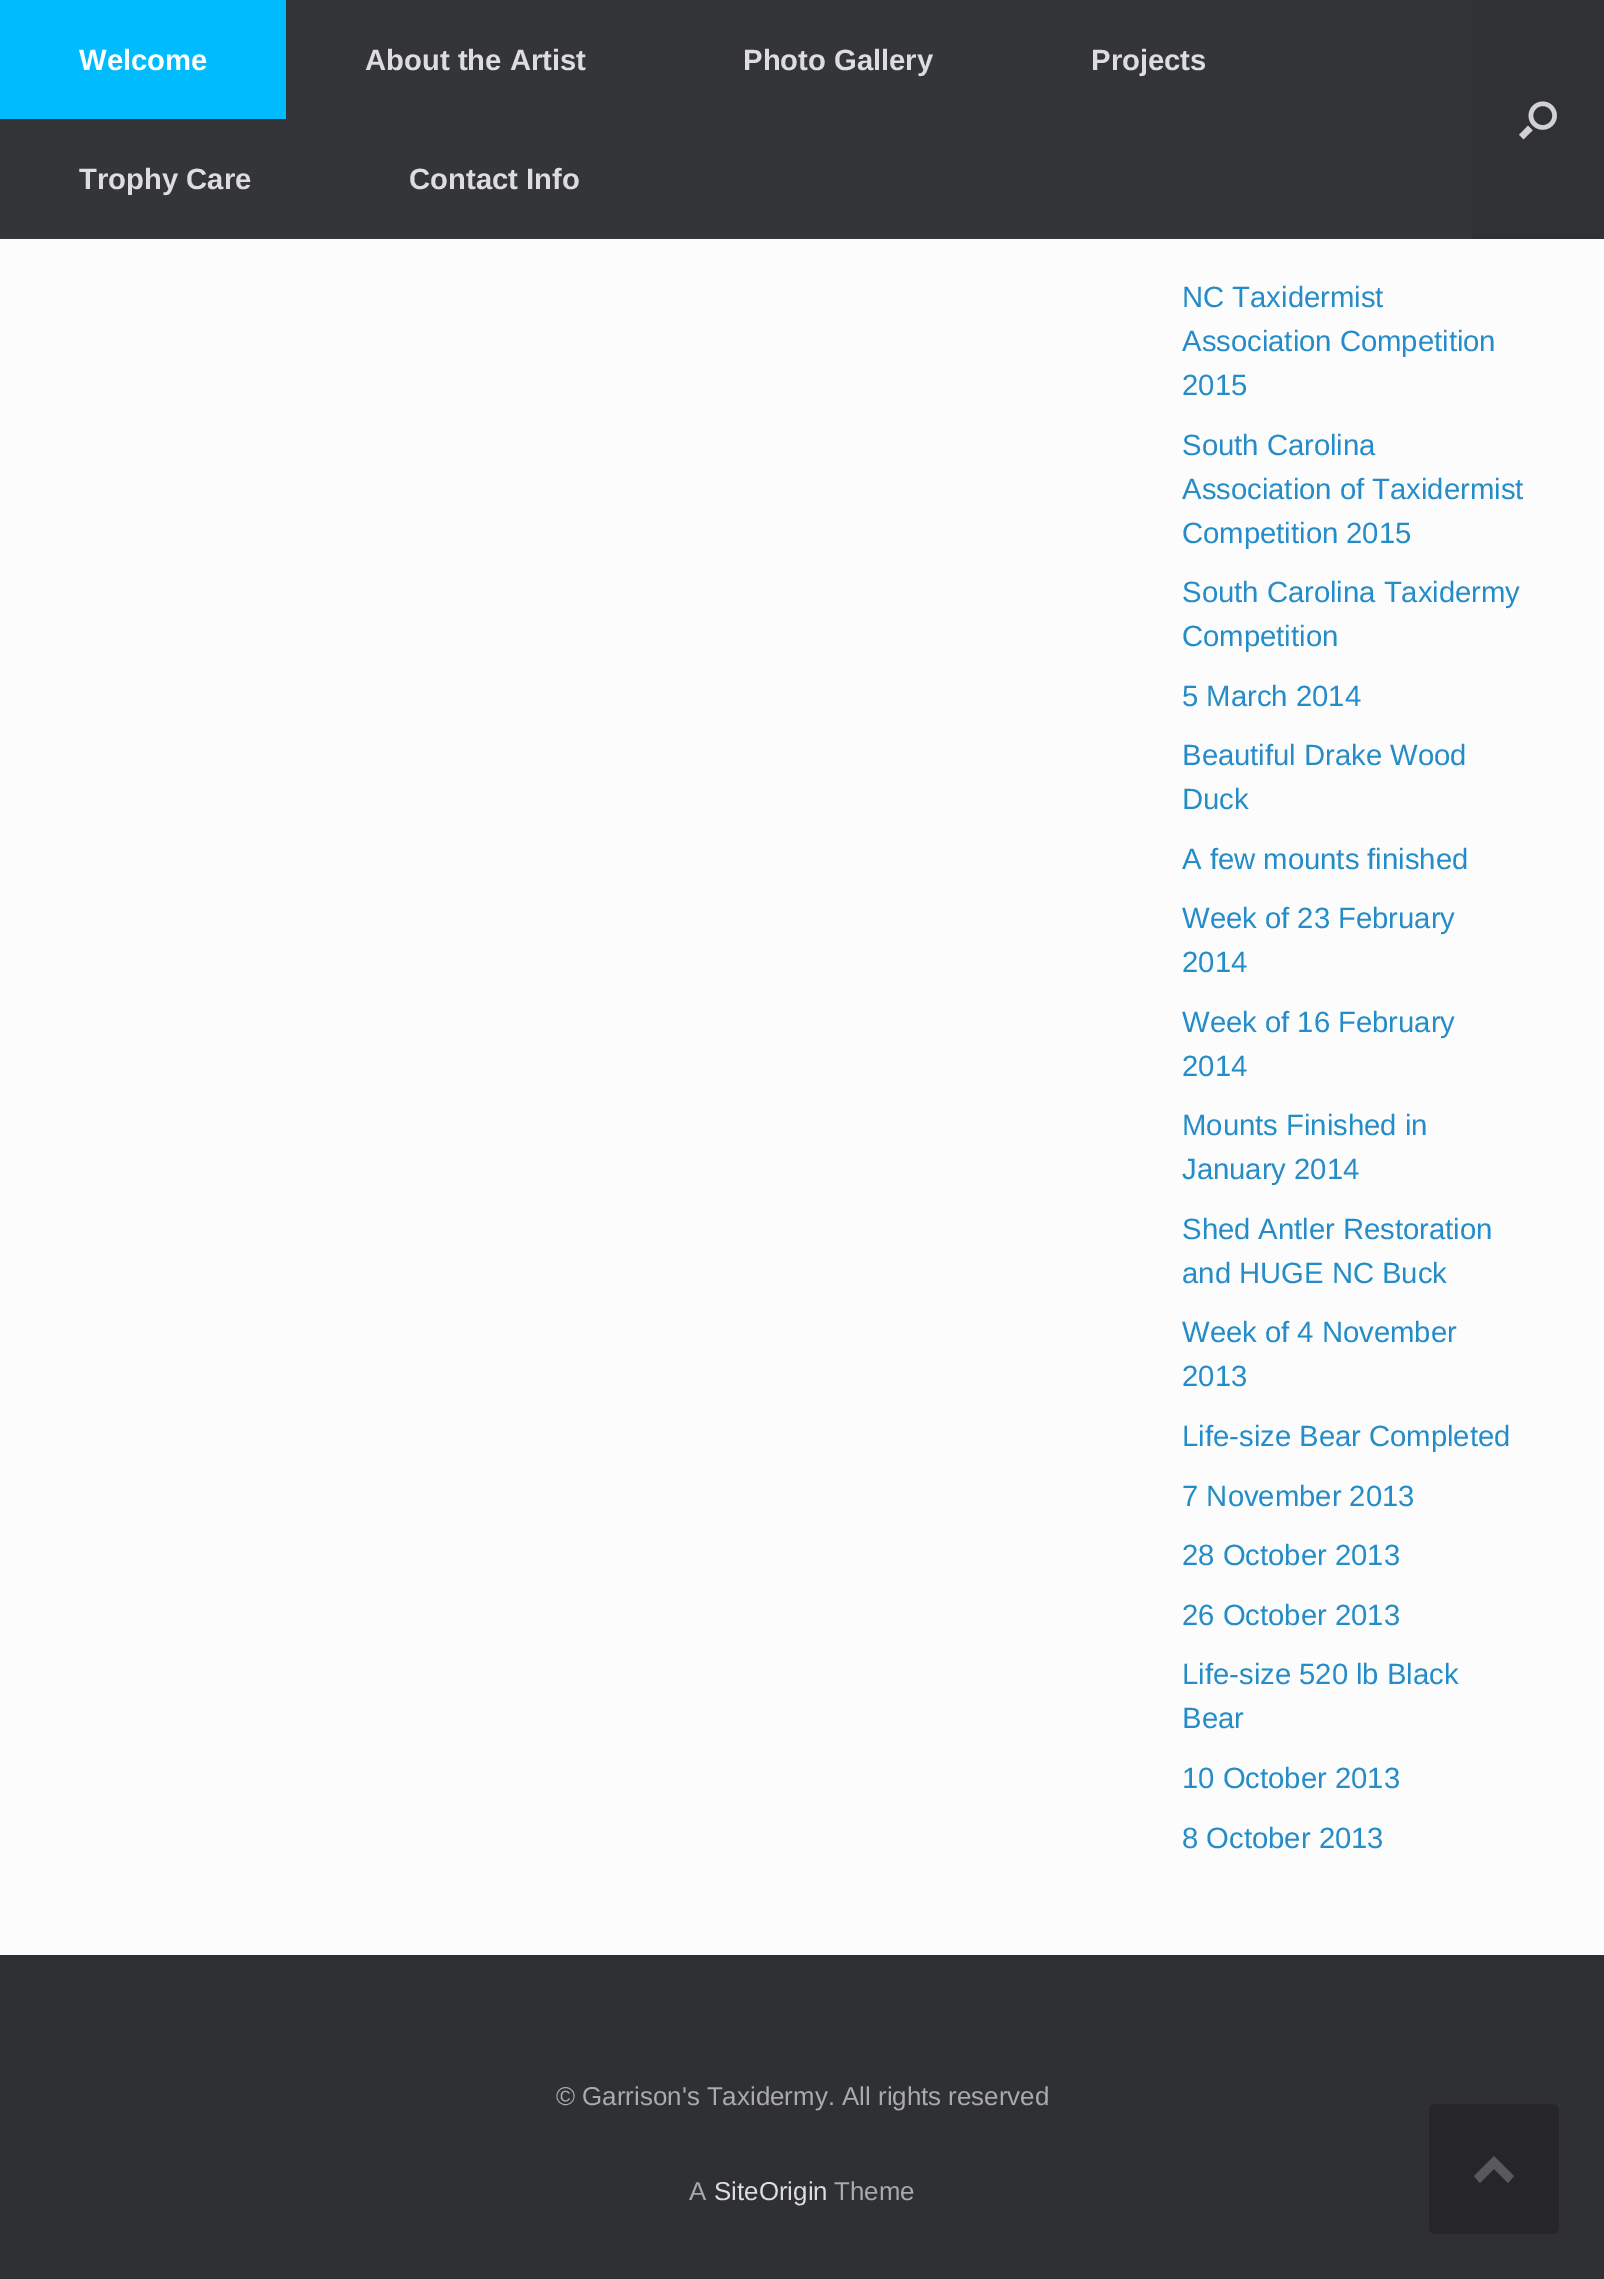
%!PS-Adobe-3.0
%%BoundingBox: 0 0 1604 2279
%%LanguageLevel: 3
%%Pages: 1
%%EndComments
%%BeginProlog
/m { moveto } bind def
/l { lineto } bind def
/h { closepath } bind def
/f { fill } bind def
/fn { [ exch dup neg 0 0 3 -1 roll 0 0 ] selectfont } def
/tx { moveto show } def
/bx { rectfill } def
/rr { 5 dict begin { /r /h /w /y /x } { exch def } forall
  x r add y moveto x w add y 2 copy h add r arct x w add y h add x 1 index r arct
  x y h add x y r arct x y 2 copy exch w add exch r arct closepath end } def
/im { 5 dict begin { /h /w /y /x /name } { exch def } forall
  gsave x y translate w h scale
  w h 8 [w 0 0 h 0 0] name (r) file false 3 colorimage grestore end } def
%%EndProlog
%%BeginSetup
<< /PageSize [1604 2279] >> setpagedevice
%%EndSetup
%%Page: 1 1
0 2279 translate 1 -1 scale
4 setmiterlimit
0.988 setgray
0 0 1604 2279 bx
0.204 0.208 0.22 setrgbcolor
0 0 1472 239 bx
0 0.737 1 setrgbcolor
0 0 286 119 bx
/LiberationSans-Bold 29.25 fn
1 setgray
(Welcome) 79 70 tx
0.867 setgray
(About the Artist) 365 70 tx
(Photo Gallery) 743 70 tx
(Projects) 1091 70 tx
(Trophy Care) 79 189 tx
(Contact Info) 409 189 tx
0.188 0.192 0.204 setrgbcolor
1472 0 132 239 bx
(image0.raw) 1519 101 38 39 im
/LiberationSans-Regular 29.25 fn
0.141 0.549 0.784 setrgbcolor
(NC Taxidermist) 1182 307 tx
(Association Competition) 1182 351 tx
(2015) 1182 395 tx
(South Carolina) 1182 455 tx
(Association of Taxidermist) 1182 499 tx
(Competition 2015) 1182 543 tx
(South Carolina Taxidermy) 1182 602 tx
(Competition) 1182 646 tx
(5 March 2014) 1182 706 tx
(Beautiful Drake Wood) 1182 765 tx
(Duck) 1182 809 tx
(A few mounts finished) 1182 869 tx
(Week of 23 February) 1182 928 tx
(2014) 1182 972 tx
(Week of 16 February) 1182 1032 tx
(2014) 1182 1076 tx
(Mounts Finished in) 1182 1135 tx
(January 2014) 1182 1179 tx
(Shed Antler Restoration) 1182 1239 tx
(and HUGE NC Buck) 1182 1283 tx
(Week of 4 November) 1182 1342 tx
(2013) 1182 1386 tx
(Life-size Bear Completed) 1182 1446 tx
(7 November 2013) 1182 1506 tx
(28 October 2013) 1182 1565 tx
(26 October 2013) 1182 1625 tx
(Life-size 520 lb Black) 1182 1684 tx
(Bear) 1182 1728 tx
(10 October 2013) 1182 1788 tx
(8 October 2013) 1182 1848 tx
0.184 0.188 0.2 setrgbcolor
0 1955 1604 324 bx
/LiberationSans-Regular 25.9 fn
0.667 setgray
(© Garrison's Taxidermy. All rights reserved) 556 2105 tx
(A) 689 2200 tx
0.867 setgray
(SiteOrigin) 714 2200 tx
0.667 setgray
(Theme) 834 2200 tx
0.149 0.149 0.161 setrgbcolor
1429 2104 130 130 7 rr f
0.349 0.349 0.361 setrgbcolor
1514 2176 m 1494 2156 l 1474 2176 l 1480 2183 l 1494 2169 l 1508 2183 l h f
showpage
%%EOF
